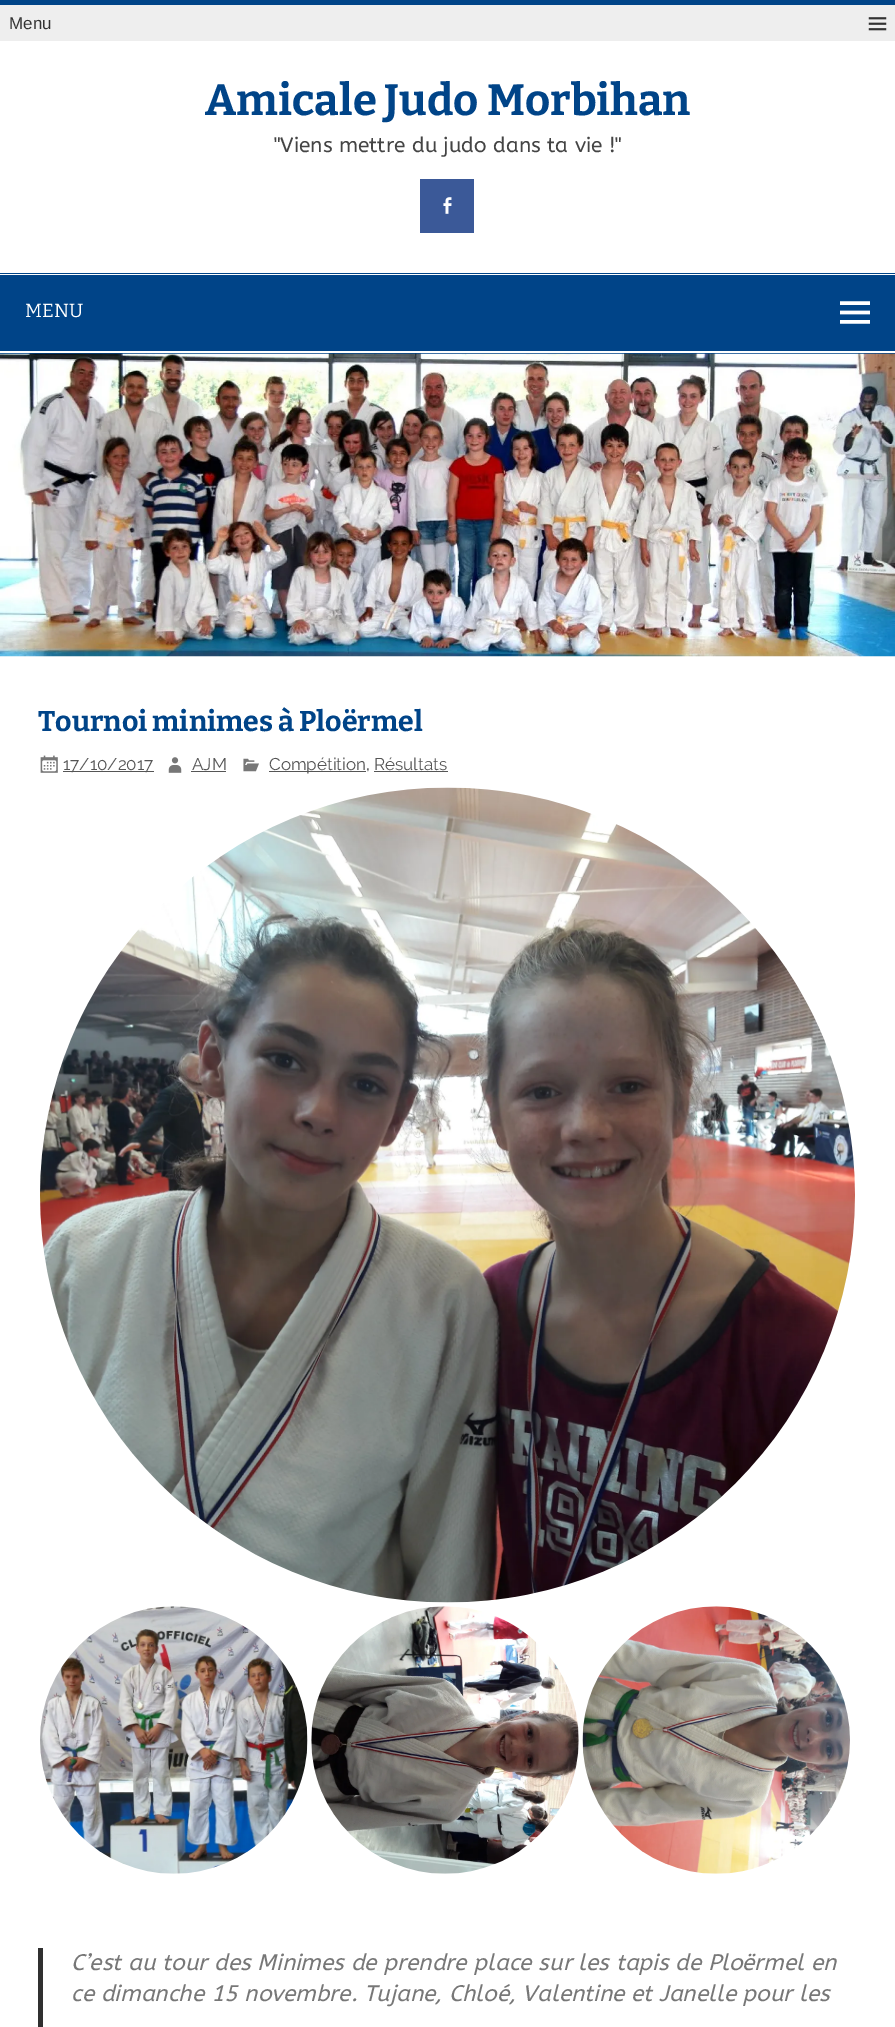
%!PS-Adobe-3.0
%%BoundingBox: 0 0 895 2027
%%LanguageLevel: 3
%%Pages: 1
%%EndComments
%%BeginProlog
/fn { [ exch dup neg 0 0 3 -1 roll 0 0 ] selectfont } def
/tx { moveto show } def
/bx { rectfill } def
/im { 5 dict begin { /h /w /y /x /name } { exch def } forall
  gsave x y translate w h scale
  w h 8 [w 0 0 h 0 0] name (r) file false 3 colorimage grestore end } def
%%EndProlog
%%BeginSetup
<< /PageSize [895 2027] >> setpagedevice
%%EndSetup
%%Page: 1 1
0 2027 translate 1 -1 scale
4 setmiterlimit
1 setgray
0 0 895 2027 bx
0 0.267 0.533 setrgbcolor
0 0 895 5 bx
0.933 setgray
0 5 895 36 bx
/LiberationSans-Regular 17 fn
0.2 setgray
(Menu) 9 29 tx
(image0.raw) 868 17 19 14 im
/Bitter-Bold 43.75 fn
0 0.267 0.533 setrgbcolor
(Amicale Judo Morbihan) 205 115 tx
/ABeeZee-Regular 20.9 fn
0.267 setgray
("Viens mettre du judo dans ta vie !") 274 152 tx
0.231 0.349 0.596 setrgbcolor
420 179 54 54 bx
(image1.raw) 443 197 9 17 im
0 0.267 0.533 setrgbcolor
0 273 895 1 bx
0 353 895 1 bx
0 275 895 76 bx
/Bitter-Regular 19 fn
1 setgray
(MENU) 25 317 tx
(image2.raw) 840 301 30 23 im
(image3.raw) 0 353 895 304 im
/Bitter-Bold 28.5 fn
0 0.267 0.533 setrgbcolor
(Tournoi minimes à Ploërmel) 38 731 tx
(image4.raw) 40 755 18 18 im
0.333 setgray
63 771 91 1 bx
/Raleway-Regular 17 fn
(17/10/2017) 63 770 tx
(image5.raw) 168 757 14 16 im
(AJM) 192 770 tx
191 771 35 1 bx
(image6.raw) 243 758 16 14 im
269 771 97 1 bx
(Compétition) 269 770 tx
0.2 setgray
(,) 366 770 tx
0.333 setgray
(Résultats) 374 770 tx
374 771 74 1 bx
(image7.raw) 40 787 815 816 im
(image8.raw) 40 1606 268 268 im
(image9.raw) 311 1606 268 268 im
(image10.raw) 582 1606 268 268 im
0.188 setgray
38 1948 5 79 bx
/ABeeZee-Italic 22.5 fn
0.467 setgray
(C’est au tour des Minimes de prendre place sur les tapis de Ploërmel en) 71 1970 tx
(ce dimanche 15 novembre. Tujane, Chloé, Valentine et Janelle pour les) 71 2001 tx
showpage
%%EOF
